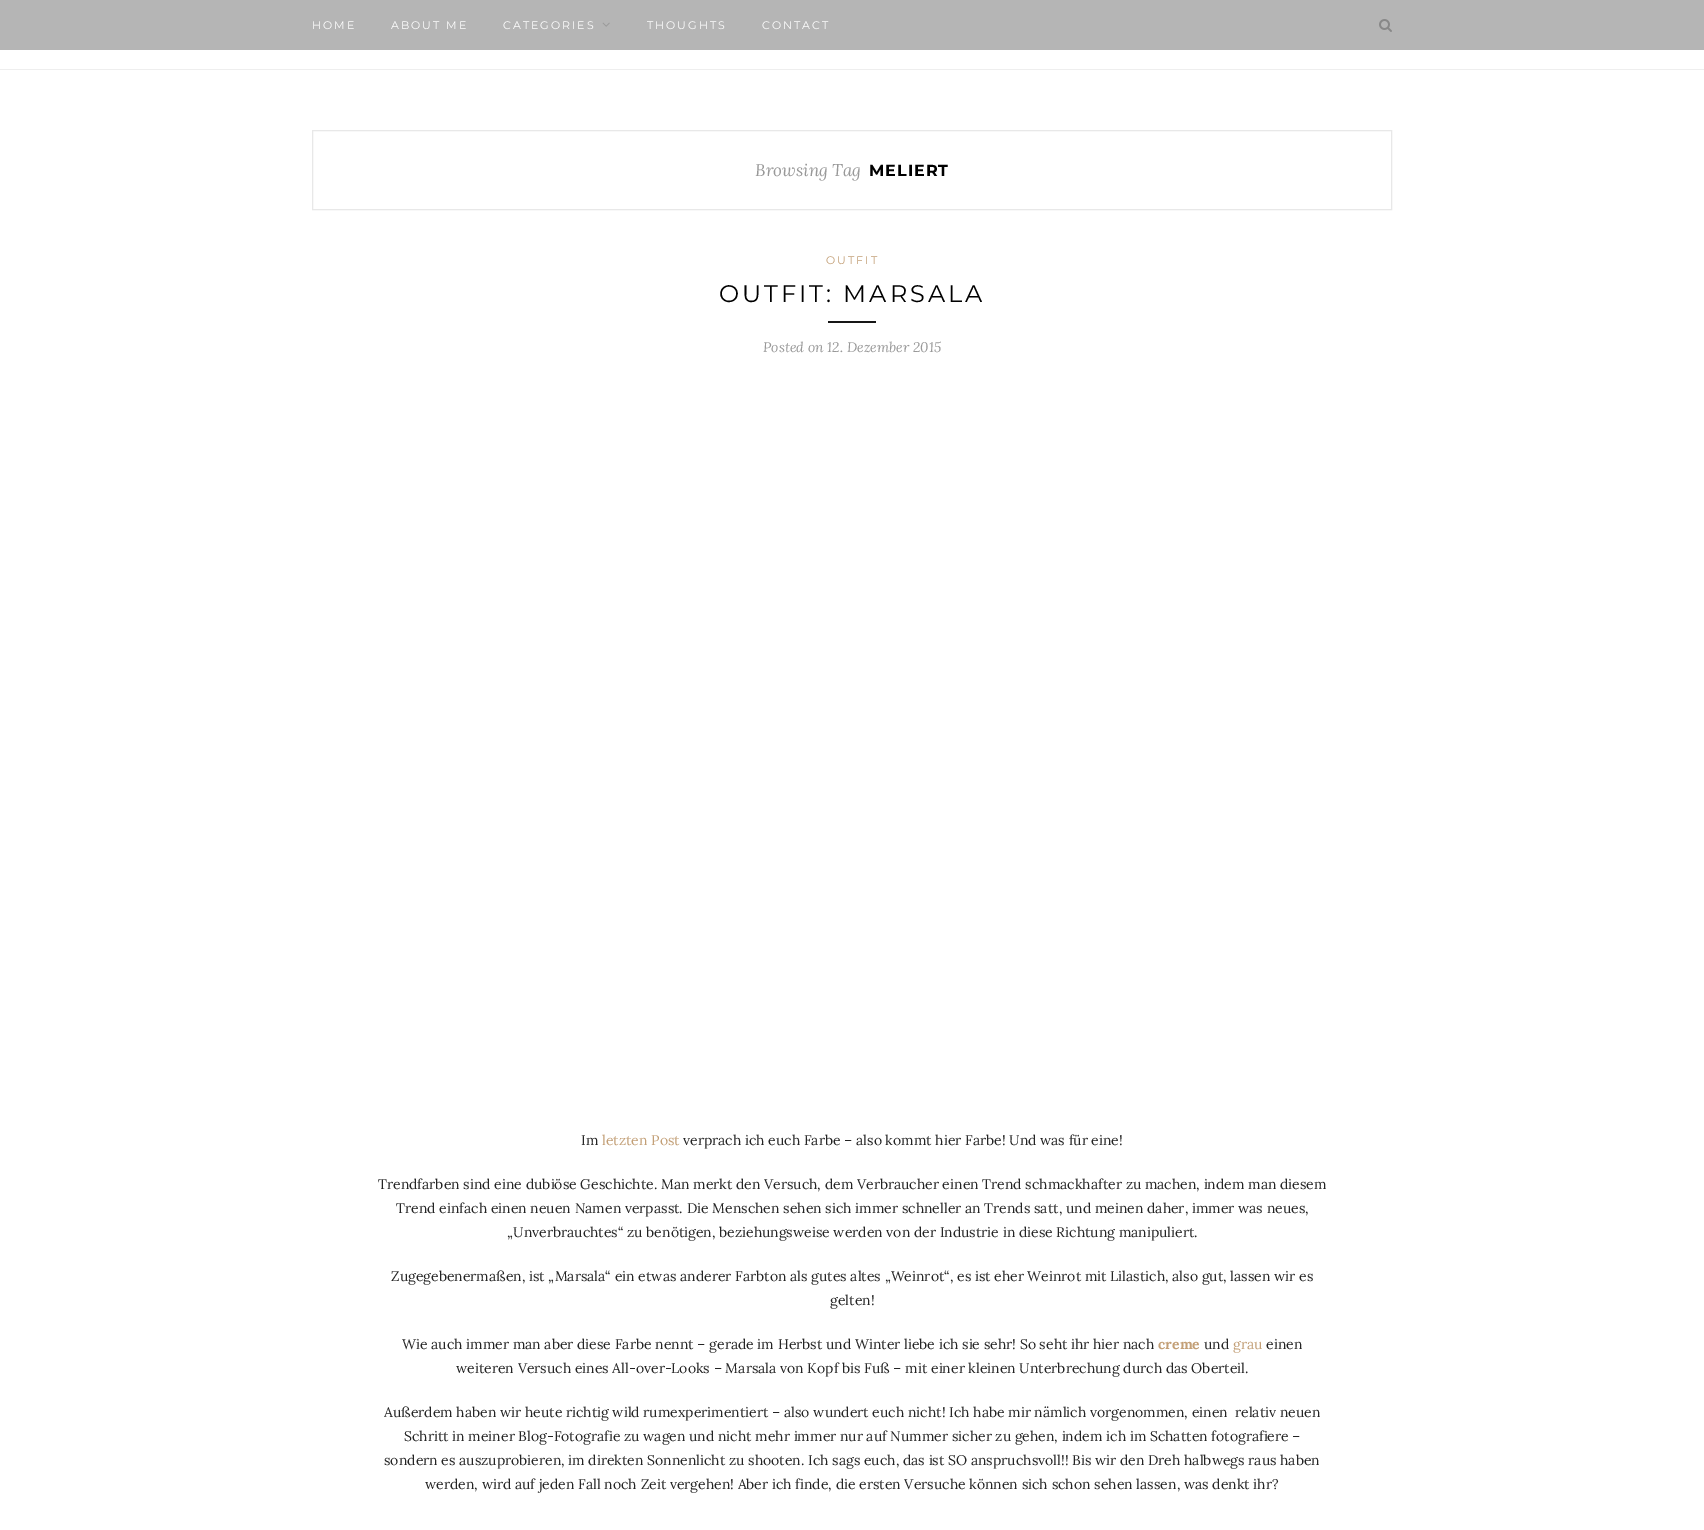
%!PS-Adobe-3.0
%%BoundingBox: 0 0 1704 1530
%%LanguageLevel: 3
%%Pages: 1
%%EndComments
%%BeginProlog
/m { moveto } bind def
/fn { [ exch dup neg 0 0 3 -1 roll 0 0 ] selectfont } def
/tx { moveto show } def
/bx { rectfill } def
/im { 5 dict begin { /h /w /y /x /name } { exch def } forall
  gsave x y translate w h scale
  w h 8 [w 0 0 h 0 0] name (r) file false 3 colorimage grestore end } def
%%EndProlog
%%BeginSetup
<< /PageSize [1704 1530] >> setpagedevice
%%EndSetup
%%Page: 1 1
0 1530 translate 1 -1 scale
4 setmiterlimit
1 setgray
0 0 1704 1530 bx
0.71 setgray
0 0 1704 50 bx
/Montserrat-Regular 11 fn
1 setgray
312 29 m 2 0 (HOME) ashow
391 29 m 2 0 (ABOUT ME) ashow
503 29 m 2 0 (CATEGORIES) ashow
(image0.raw) 602 22 8 5 im
647 29 m 2 0 (THOUGHTS) ashow
762 29 m 2 0 (CONTACT) ashow
(image1.raw) 1379 19 13 13 im
0.933 setgray
0 69 1704 1 bx
0.91 setgray
312.5 130.5 1079 79 rectstroke
/Lora-Italic 17 fn
0.6 setgray
(Browsing Tag) 755 176 tx
/Montserrat-Bold 16 fn
0 setgray
869 176 m 1 0 (MELIERT) ashow
/Montserrat-Regular 11 fn
0.765 0.624 0.463 setrgbcolor
826 264 m 2 0 (OUTFIT) ashow
/Montserrat-Regular 24 fn
0 setgray
719 302 m 3 0 (OUTFIT: MARSALA) ashow
0.086 setgray
828 321 48 2 bx
/Lora-Italic 14 fn
0.6 setgray
(Posted on 12. Dezember 2015) 763 352 tx
/Lora-Regular 14 fn
0.141 setgray
(Im) 581 1145 tx
0.765 0.624 0.463 setrgbcolor
(letzten Post) 602 1145 tx
0.141 setgray
(verprach ich euch Farbe – also kommt hier Farbe! Und was für eine!) 683 1145 tx
(Trendfarben sind eine dubiöse Geschichte. Man merkt den Versuch, dem Verbraucher einen Trend schmackhafter zu machen, indem man diesem) 378 1189 tx
(Trend einfach einen neuen Namen verpasst. Die Menschen sehen sich immer schneller an Trends satt, und meinen daher, immer was neues,) 396 1213 tx
(„Unverbrauchtes“ zu benötigen, beziehungsweise werden von der Industrie in diese Richtung manipuliert.) 507 1237 tx
(Zugegebenermaßen, ist „Marsala“ ein etwas anderer Farbton als gutes altes „Weinrot“, es ist eher Weinrot mit Lilastich, also gut, lassen wir es) 391 1281 tx
(gelten!) 830 1305 tx
(Wie auch immer man aber diese Farbe nennt – gerade im Herbst und Winter liebe ich sie sehr! So seht ihr hier nach) 402 1349 tx
/Lora-Bold 14 fn
0.765 0.624 0.463 setrgbcolor
(creme) 1158 1349 tx
/Lora-Regular 14 fn
0.141 setgray
(und) 1204 1349 tx
0.765 0.624 0.463 setrgbcolor
(grau) 1233 1349 tx
0.141 setgray
(einen) 1266 1349 tx
(weiteren Versuch eines All-over-Looks – Marsala von Kopf bis Fuß – mit einer kleinen Unterbrechung durch das Oberteil.) 456 1373 tx
(Außerdem haben wir heute richtig wild rumexperimentiert – also wundert euch nicht! Ich habe mir nämlich vorgenommen, einen  relativ neuen) 384 1417 tx
(Schritt in meiner Blog-Fotografie zu wagen und nicht mehr immer nur auf Nummer sicher zu gehen, indem ich im Schatten fotografiere –) 404 1441 tx
(sondern es auszuprobieren, im direkten Sonnenlicht zu shooten. Ich sags euch, das ist SO anspruchsvoll!! Bis wir den Dreh halbwegs raus haben) 384 1465 tx
(werden, wird auf jeden Fall noch Zeit vergehen! Aber ich finde, die ersten Versuche können sich schon sehen lassen, was denkt ihr?) 425 1489 tx
showpage
%%EOF
